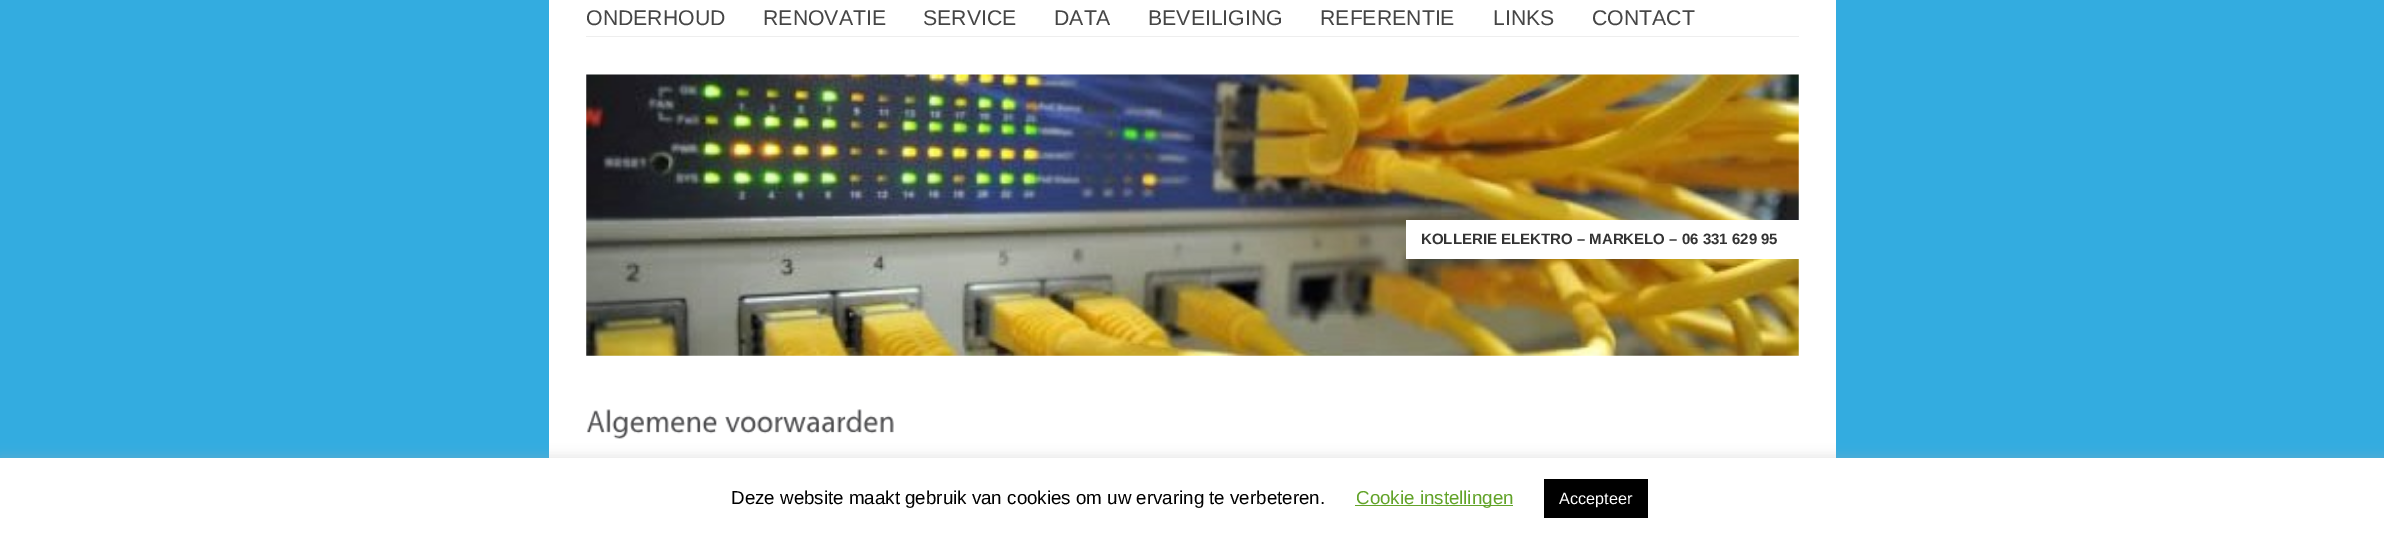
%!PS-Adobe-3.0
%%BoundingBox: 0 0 2384 538
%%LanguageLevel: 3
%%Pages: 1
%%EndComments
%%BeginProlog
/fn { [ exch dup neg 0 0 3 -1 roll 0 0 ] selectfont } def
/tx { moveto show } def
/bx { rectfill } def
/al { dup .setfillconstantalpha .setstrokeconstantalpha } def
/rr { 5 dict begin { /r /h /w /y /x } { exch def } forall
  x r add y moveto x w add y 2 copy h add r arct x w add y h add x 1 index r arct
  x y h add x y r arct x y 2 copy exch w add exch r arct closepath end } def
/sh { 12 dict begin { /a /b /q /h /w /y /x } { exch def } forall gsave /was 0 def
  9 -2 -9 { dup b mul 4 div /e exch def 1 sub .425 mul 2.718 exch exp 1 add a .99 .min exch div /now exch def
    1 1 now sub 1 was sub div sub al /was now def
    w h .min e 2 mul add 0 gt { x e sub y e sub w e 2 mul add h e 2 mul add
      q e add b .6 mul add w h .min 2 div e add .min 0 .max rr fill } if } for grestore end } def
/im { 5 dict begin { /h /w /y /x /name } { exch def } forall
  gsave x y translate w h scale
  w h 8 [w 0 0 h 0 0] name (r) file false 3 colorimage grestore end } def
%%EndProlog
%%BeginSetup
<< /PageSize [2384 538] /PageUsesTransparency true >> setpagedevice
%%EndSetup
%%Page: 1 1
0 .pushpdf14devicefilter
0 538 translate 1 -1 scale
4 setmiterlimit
0.2 0.675 0.878 setrgbcolor
0 0 2384 538 bx
1 setgray
549 0 1287 458 bx
0.933 setgray
586 36 1213 1 bx
/LiberationSans-Regular 21.25 fn
0.271 setgray
(ONDERHOUD) 586 25 tx
(RENOVATIE) 763 25 tx
(SERVICE) 923 25 tx
(DATA) 1054 25 tx
(BEVEILIGING) 1148 25 tx
(REFERENTIE) 1320 25 tx
(LINKS) 1493 25 tx
(CONTACT) 1592 25 tx
(image0.raw) 586 74 1213 282 im
1 setgray
1406 220 393 39 bx
/LiberationSans-Bold 15 fn
0.2 setgray
(KOLLERIE ELEKTRO – MARKELO – 06 331 629 95) 1421 244 tx
(image1.raw) 586 409 131 30 im
(image2.raw) 725 409 169 25 im
0.675 0.671 0.671 setrgbcolor
0 456 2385 82 0 6 0.3 sh
1 setgray
0 458 2384 80 bx
/LiberationSans-Regular 18.75 fn
0 setgray
(Deze website maakt gebruik van cookies om uw ervaring te verbeteren.) 731 504 tx
0.384 0.639 0.161 setrgbcolor
1355 505 158 1 bx
(Cookie instellingen) 1356 504 tx
0 setgray
1544 479 104 39 bx
/LiberationSans-Regular 16.25 fn
1 setgray
(Accepteer) 1559 504 tx
.poppdf14devicefilter showpage
%%EOF
